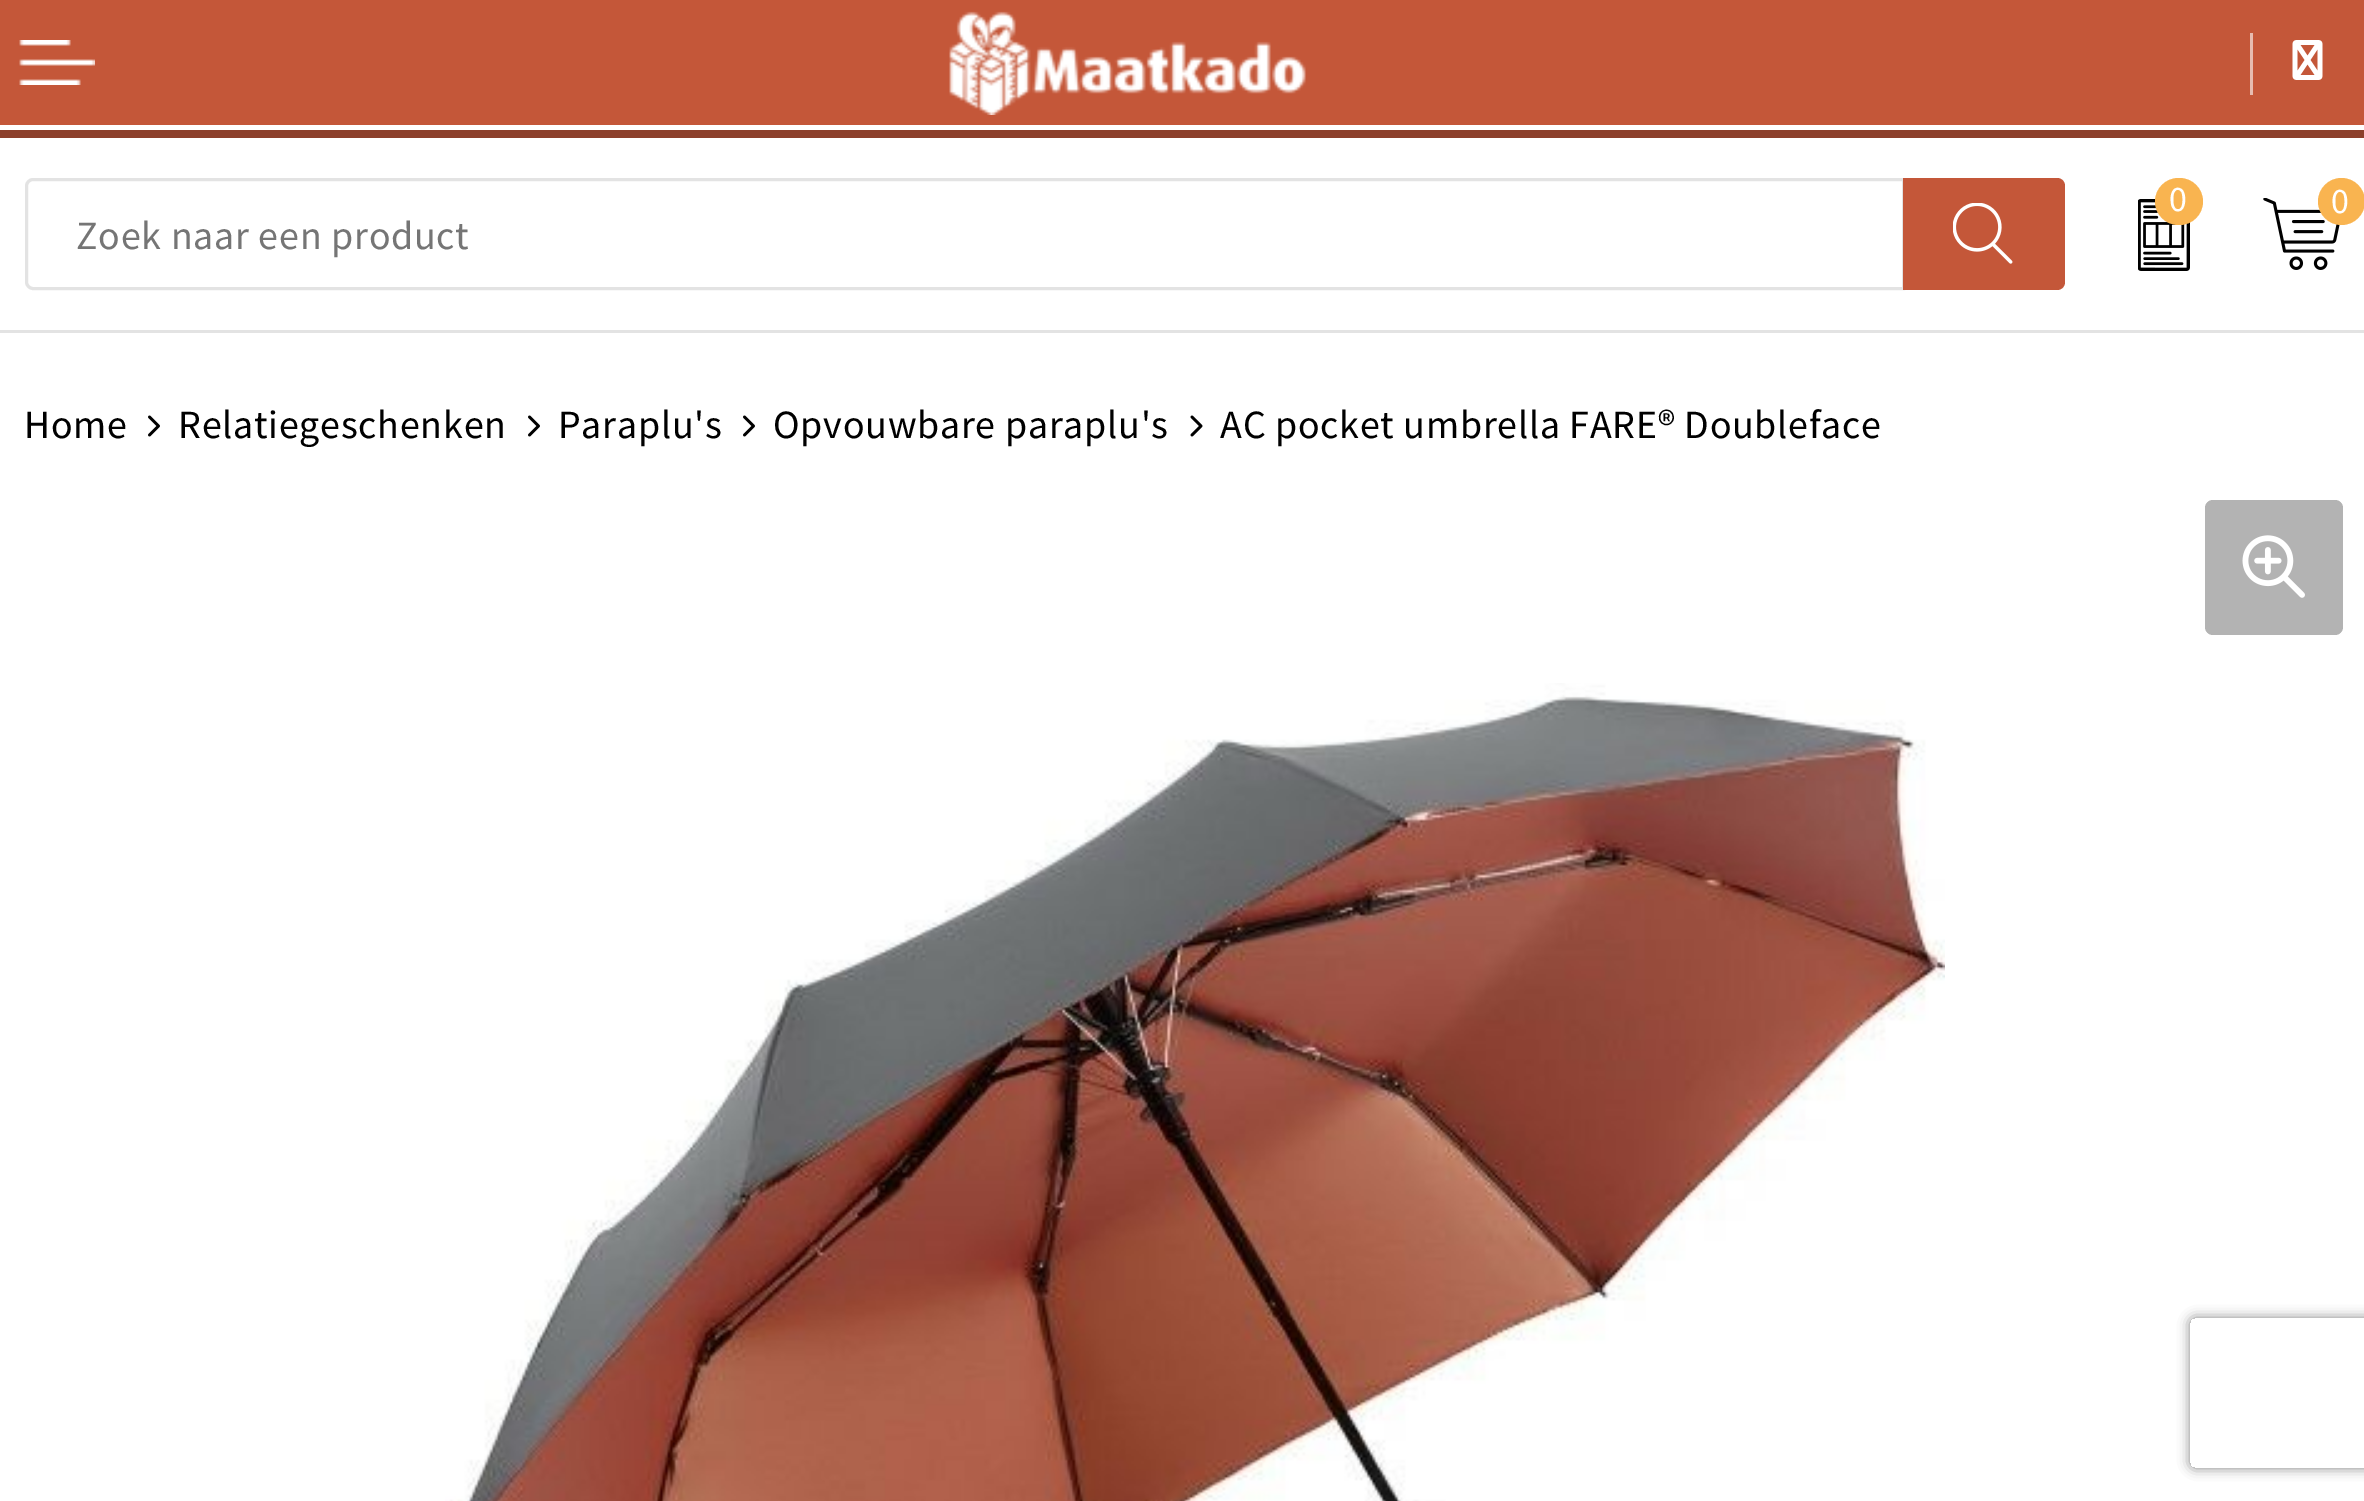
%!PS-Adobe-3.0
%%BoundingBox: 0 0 2364 1501
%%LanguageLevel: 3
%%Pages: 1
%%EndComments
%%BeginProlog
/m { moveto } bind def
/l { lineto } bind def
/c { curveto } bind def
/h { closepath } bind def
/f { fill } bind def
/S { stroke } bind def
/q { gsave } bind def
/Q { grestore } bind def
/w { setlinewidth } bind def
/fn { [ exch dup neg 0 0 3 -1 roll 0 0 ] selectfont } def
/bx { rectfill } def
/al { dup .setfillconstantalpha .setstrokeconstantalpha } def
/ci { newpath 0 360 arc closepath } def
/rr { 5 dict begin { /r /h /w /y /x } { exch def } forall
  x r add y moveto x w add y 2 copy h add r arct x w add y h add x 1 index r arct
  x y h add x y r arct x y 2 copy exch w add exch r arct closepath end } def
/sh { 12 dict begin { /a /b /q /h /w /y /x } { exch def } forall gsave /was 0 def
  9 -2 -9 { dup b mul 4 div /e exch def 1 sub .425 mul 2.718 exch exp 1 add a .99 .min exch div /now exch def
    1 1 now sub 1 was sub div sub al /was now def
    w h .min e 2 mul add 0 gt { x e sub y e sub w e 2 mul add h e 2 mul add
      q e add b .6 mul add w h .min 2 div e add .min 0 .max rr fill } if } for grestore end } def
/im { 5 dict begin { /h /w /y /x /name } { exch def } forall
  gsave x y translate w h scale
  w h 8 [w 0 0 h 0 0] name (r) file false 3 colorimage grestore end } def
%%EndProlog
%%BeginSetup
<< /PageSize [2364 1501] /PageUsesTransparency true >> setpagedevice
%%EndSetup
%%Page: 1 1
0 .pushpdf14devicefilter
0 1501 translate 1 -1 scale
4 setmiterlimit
1 setgray
0 0 2364 1501 bx
0.549 0.251 0.169 setrgbcolor
0 130 2364 8 bx
0.769 0.341 0.224 setrgbcolor
0 0 2364 125 bx
(image0.raw) 19 40 76 45 im
(image1.raw) 949 11 357 104 im
0.906 0.737 0.69 setrgbcolor
2250 33 3 62 bx
(image2.raw) 2292 40 31 40 im
(image3.raw) 2138 199 52 72 im
0.976 0.706 0.314 setrgbcolor
2155 178 48 47 23.5 rr f
/SourceSansPro-Regular 36 fn
1 setgray
2169 211 m 0.75 0 (0) ashow
(image4.raw) 2263 198 77 72 im
0.976 0.706 0.314 setrgbcolor
2341.5 201.5 23.5 ci f
1 setgray
2331 213 m 0.75 0 (0) ashow
0.89 setgray
3 w
33 179.5 m 1903.5 179.5 l 1903.5 288.5 l 33 288.5 l 29.5 288.5 26.5 285.5 26.5 282 c 26.5 186 l 26.5 182.5 29.5 179.5 33 179.5 c h S
/SourceSansPro-Regular 40 fn
0.459 setgray
76 249 m 0.75 0 (Zoek naar een product) ashow
0.769 0.341 0.224 setrgbcolor
1903 178 m 2057 178 l 2061.5 178 2065 181.5 2065 186 c 2065 282 l 2065 286.5 2061.5 290 2057 290 c 1903 290 l h f
(image5.raw) 1953 203 60 61 im
0.89 setgray
0 330 2364 3 bx
0 setgray
24 438 m 0.75 0 (Home) ashow
(image6.raw) 148 415 12 22 im
178 438 m 0.75 0 (Relatiegeschenken) ashow
(image6.raw) 528 415 12 22 im
558 438 m 0.75 0 (Paraplu's) ashow
(image6.raw) 743 415 12 22 im
773 438 m 0.75 0 (Opvouwbare paraplu's) ashow
(image7.raw) 1190 415 13 22 im
1220 438 m 0.75 0 (AC pocket umbrella FARE® Doubleface) ashow
0.702 setgray
2205 500 138 135 8 rr f
(image8.raw) 2242 535 63 63 im
(image9.raw) 445 683 1500 818 im
q
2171 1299 m 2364 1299 l 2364 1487 l 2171 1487 l h 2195 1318 m 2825 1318 l 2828 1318 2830 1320 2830 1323 c 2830 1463 l 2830 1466 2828 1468 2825 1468 c 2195 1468 l 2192 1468 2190 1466 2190 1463 c 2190 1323 l 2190 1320 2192 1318 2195 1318 c h eoclip newpath
0.502 setgray
2190 1318 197 150 5 6 1 sh
Q
.poppdf14devicefilter showpage
%%EOF
